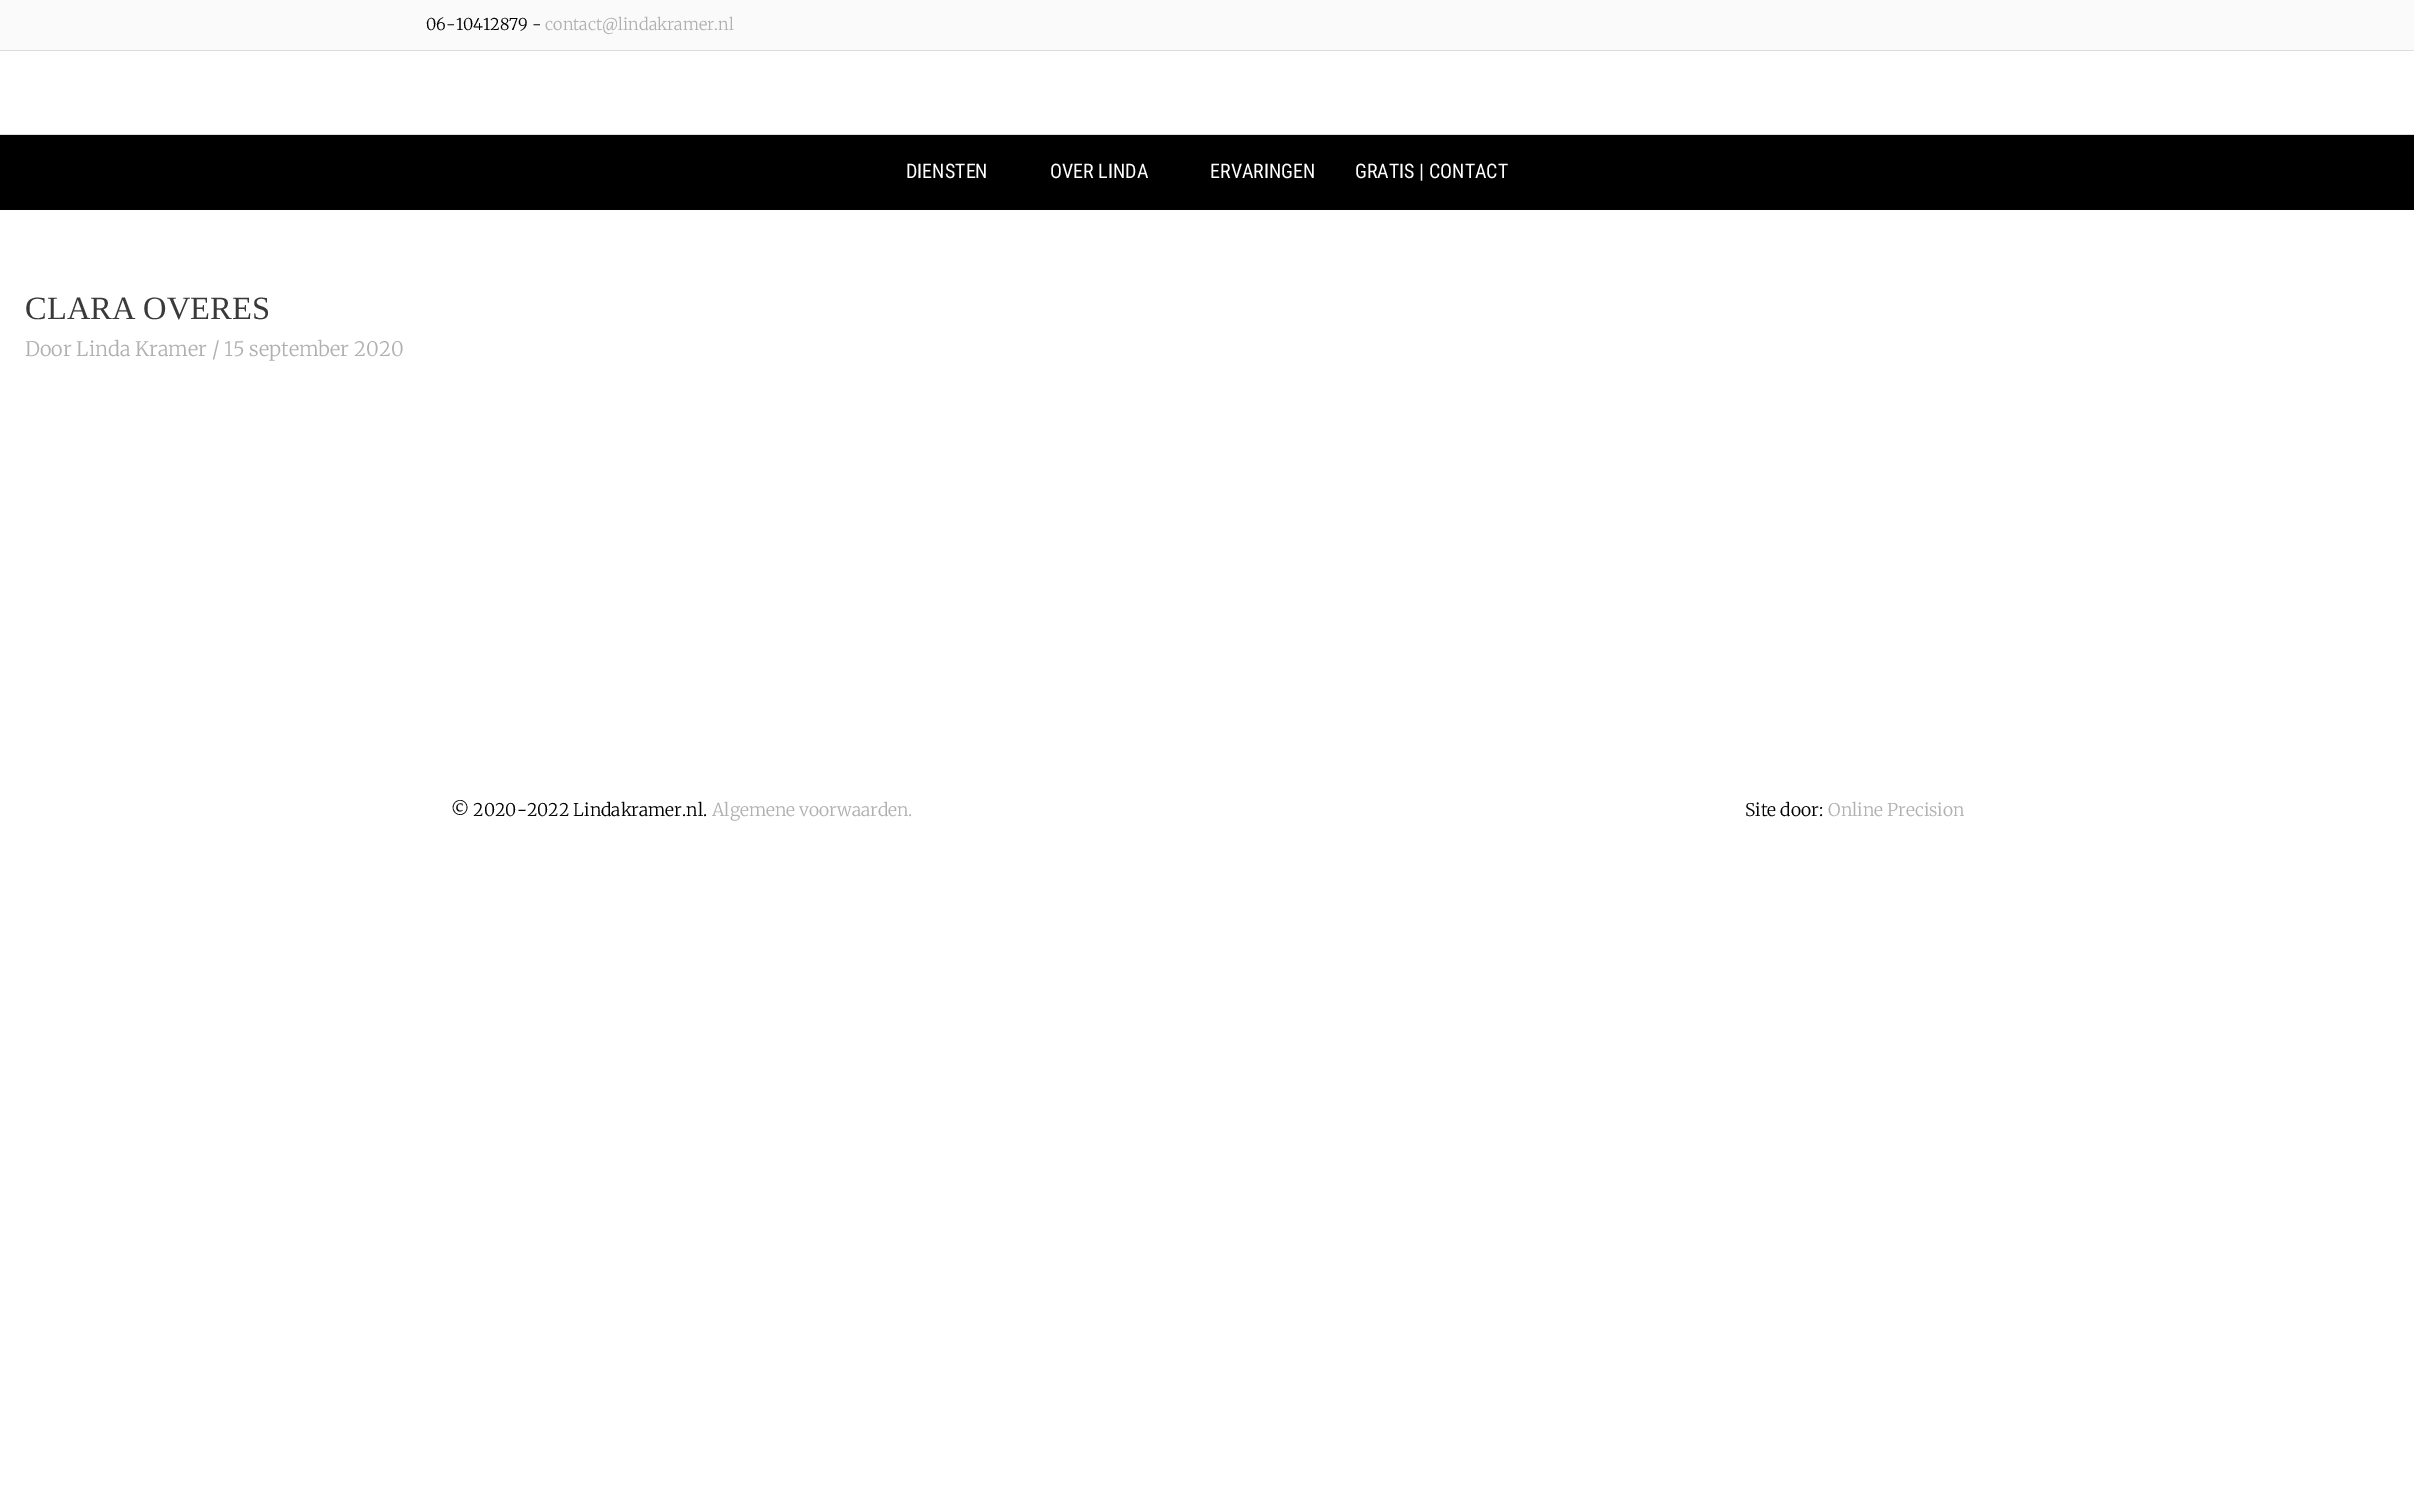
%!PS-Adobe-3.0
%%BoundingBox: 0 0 2414 1506
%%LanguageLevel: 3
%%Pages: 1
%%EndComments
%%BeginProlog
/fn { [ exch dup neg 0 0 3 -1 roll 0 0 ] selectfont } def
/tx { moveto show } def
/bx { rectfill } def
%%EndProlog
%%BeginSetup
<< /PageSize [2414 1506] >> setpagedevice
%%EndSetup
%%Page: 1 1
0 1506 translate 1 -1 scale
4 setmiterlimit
1 setgray
0 0 2414 1506 bx
0.98 setgray
0 0 2414 50 bx
0.867 setgray
0 50 2414 1 bx
/Merriweather-Light 16.25 fn
0 setgray
(06-10412879 -) 426 30 tx
0.69 setgray
(contact@lindakramer.nl) 545 30 tx
0.867 setgray
0 134 2414 1 bx
0 setgray
0 135 2414 75 bx
/RobotoCondensed-Regular 20 fn
1 setgray
(DIENSTEN) 906 178 tx
(OVER LINDA) 1050 178 tx
(ERVARINGEN) 1210 178 tx
(GRATIS | CONTACT) 1355 178 tx
/LiberationSerif-Regular 32.5 fn
0.227 setgray
(CLARA OVERES) 25 319 tx
/Merriweather-Light 20 fn
0.69 setgray
(Door Linda Kramer / 15 september 2020) 25 356 tx
/Merriweather-Light 17.5 fn
0 setgray
(© 2020-2022 Lindakramer.nl.) 451 816 tx
0.69 setgray
(Algemene voorwaarden.) 712 816 tx
0 setgray
(Site door:) 1745 816 tx
0.69 setgray
(Online Precision) 1828 816 tx
showpage
%%EOF
